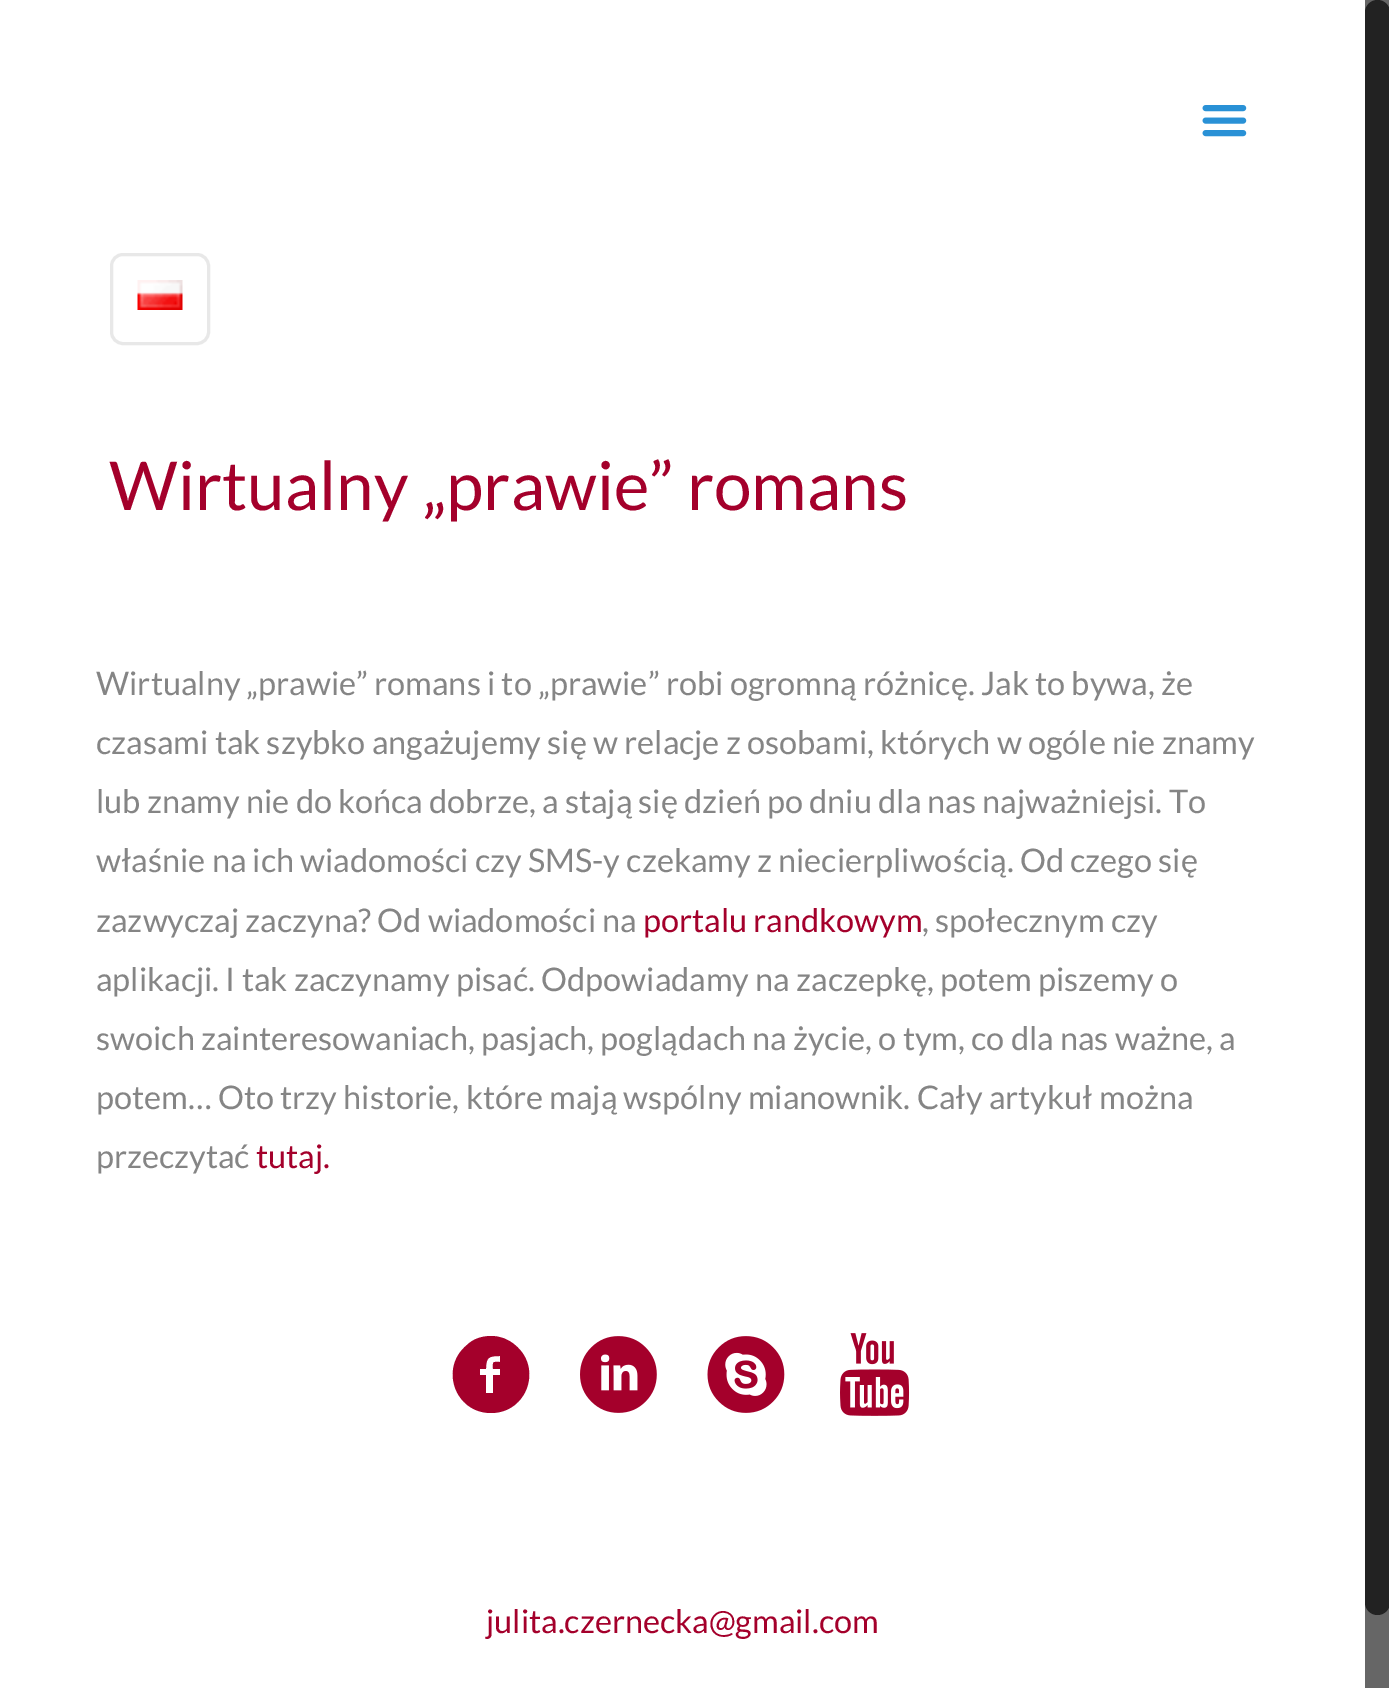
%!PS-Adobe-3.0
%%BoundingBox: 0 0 1389 1688
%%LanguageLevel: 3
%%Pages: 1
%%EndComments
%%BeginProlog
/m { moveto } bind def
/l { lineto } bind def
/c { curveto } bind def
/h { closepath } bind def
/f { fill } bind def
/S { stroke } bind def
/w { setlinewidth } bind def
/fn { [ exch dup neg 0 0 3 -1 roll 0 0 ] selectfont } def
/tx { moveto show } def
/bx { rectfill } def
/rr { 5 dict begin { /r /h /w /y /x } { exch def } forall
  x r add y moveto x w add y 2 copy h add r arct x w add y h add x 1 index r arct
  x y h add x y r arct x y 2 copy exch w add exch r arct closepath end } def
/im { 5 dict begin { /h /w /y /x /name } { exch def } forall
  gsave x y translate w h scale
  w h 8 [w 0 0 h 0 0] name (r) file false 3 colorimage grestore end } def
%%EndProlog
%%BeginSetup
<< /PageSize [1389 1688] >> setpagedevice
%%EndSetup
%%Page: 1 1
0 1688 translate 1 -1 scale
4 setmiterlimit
1 setgray
0 0 1389 1688 bx
(image0.raw) 1202 105 45 32 im
0.91 setgray
3 w
111.5 254.5 97 89 11.5 rr S
(image1.raw) 137 280 46 30 im
/Lato-Regular 67.5 fn
0.643 0 0.169 setrgbcolor
(Wirtualny „prawie” romans) 109 510 tx
/Lato-Regular 32.5 fn
0.522 setgray
(Wirtualny „prawie” romans i to „prawie” robi ogromną różnicę. Jak to bywa, że) 96 695 tx
(czasami tak szybko angażujemy się w relacje z osobami, których w ogóle nie znamy) 96 754 tx
(lub znamy nie do końca dobrze, a stają się dzień po dniu dla nas najważniejsi. To) 96 813 tx
(właśnie na ich wiadomości czy SMS-y czekamy z niecierpliwością. Od czego się) 96 872 tx
(zazwyczaj zaczyna? Od wiadomości na) 96 932 tx
0.643 0 0.169 setrgbcolor
(portalu randkowym) 643 932 tx
0.522 setgray
(, społecznym czy) 922 932 tx
(aplikacji. I tak zaczynamy pisać. Odpowiadamy na zaczepkę, potem piszemy o) 96 991 tx
(swoich zainteresowaniach, pasjach, poglądach na życie, o tym, co dla nas ważne, a) 96 1050 tx
(potem… Oto trzy historie, które mają wspólny mianownik. Cały artykuł można) 96 1109 tx
(przeczytać) 96 1168 tx
0.643 0 0.169 setrgbcolor
(tutaj.) 256 1168 tx
491 1336 m 500 1336 508 1339 515 1345 c 543 1368 527 1413 491 1413 c 455 1413 439 1368 467 1345 c 473 1339 482 1336 491 1336 c h 500 1362 m 500 1356 l 489 1356 486 1357 486 1369 c 480 1369 l 480 1375 l 486 1375 l 486 1393 l 493 1393 l 493 1375 l 500 1375 l 500 1369 l 493 1369 l 493 1361 492 1362 500 1362 c h f
(image2.raw) 580 1336 77 77 im
(image3.raw) 707 1336 78 77 im
(image4.raw) 840 1333 70 83 im
(julita.czernecka@gmail.com) 486 1633 tx
0.4 setgray
1365 0 24 1688 bx
0.133 setgray
1365 0 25 1615 12.5 rr f
showpage
%%EOF
